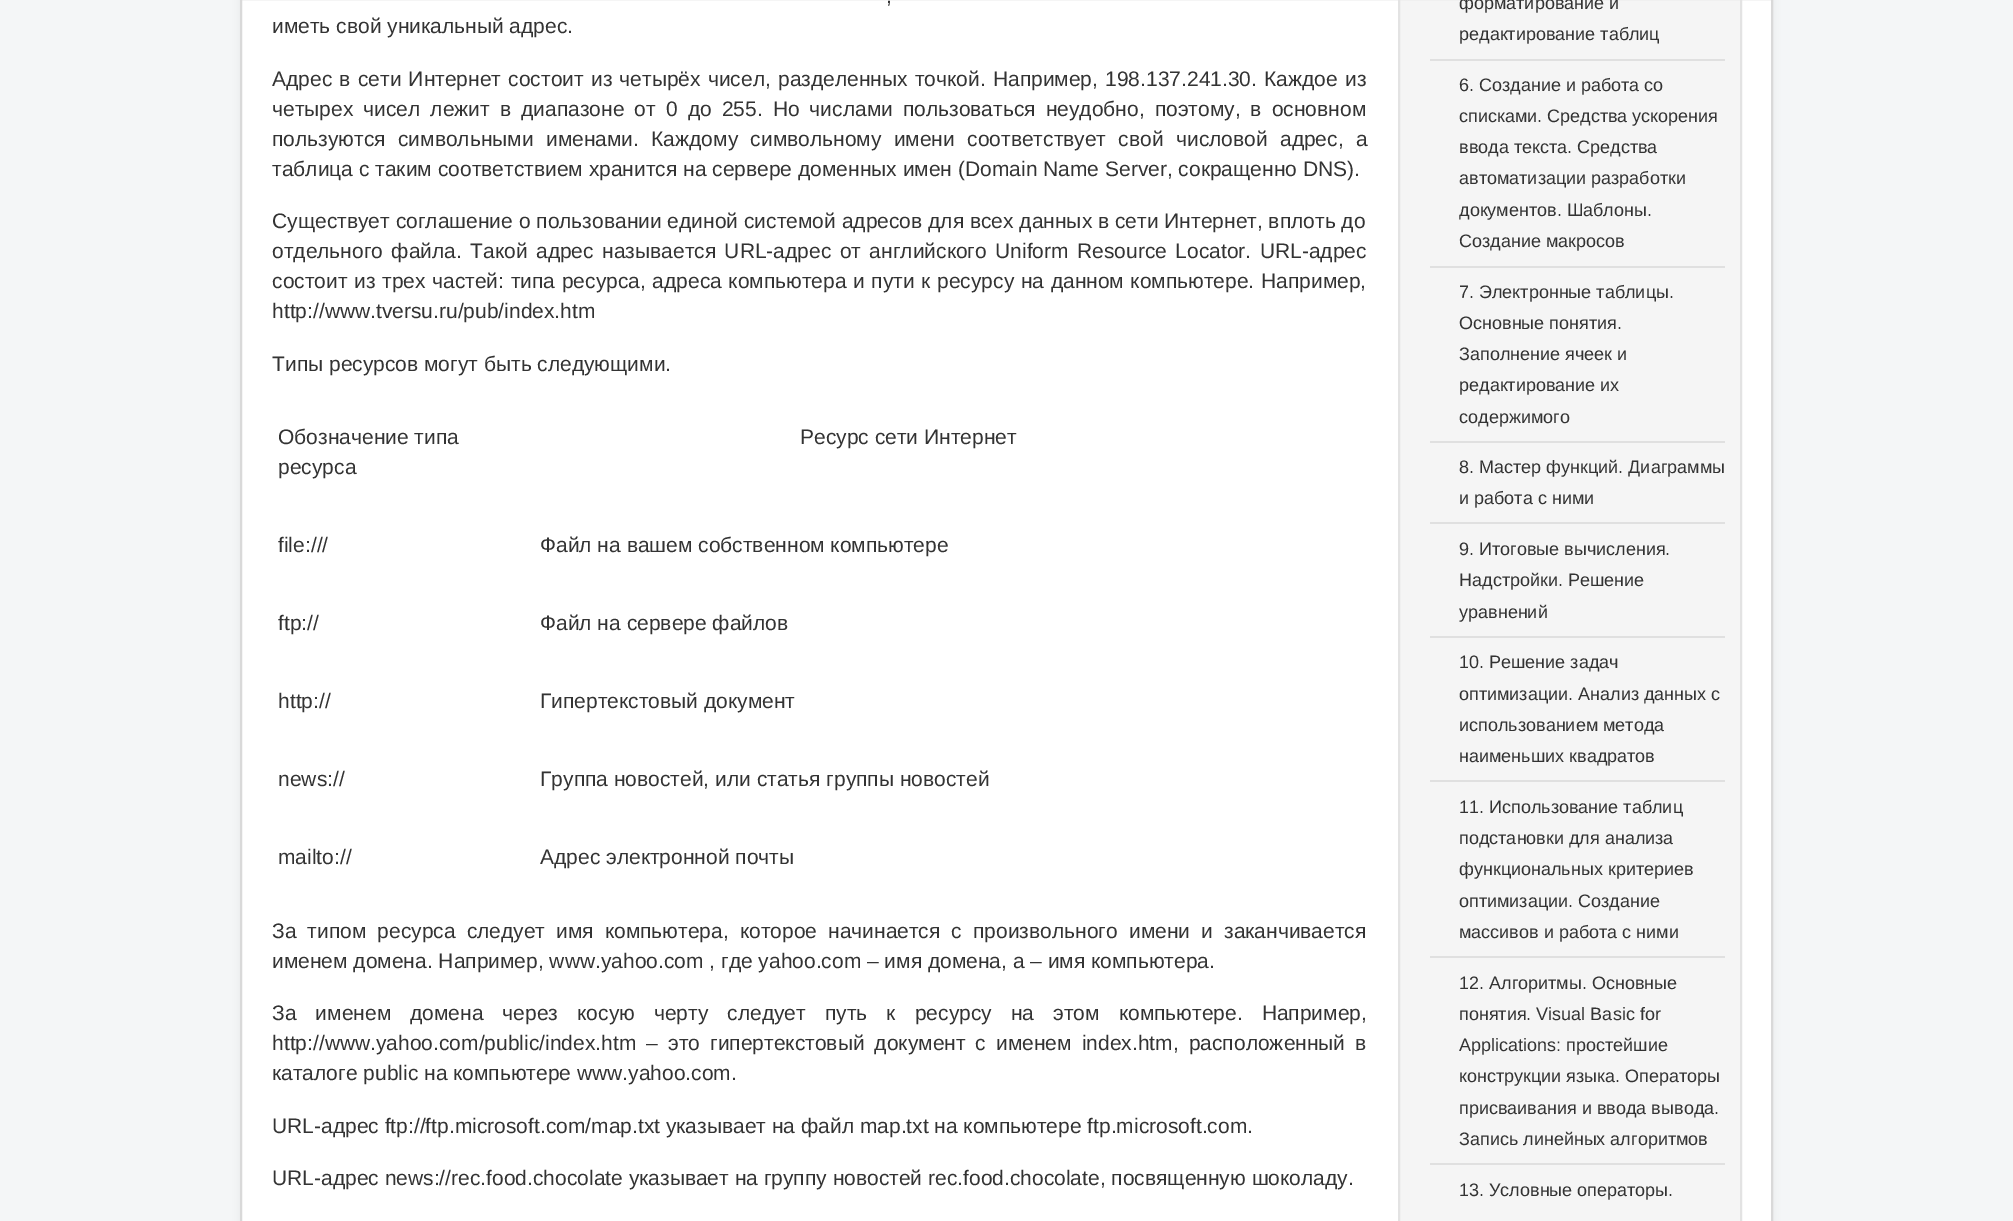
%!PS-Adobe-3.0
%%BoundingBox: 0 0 2013 1221
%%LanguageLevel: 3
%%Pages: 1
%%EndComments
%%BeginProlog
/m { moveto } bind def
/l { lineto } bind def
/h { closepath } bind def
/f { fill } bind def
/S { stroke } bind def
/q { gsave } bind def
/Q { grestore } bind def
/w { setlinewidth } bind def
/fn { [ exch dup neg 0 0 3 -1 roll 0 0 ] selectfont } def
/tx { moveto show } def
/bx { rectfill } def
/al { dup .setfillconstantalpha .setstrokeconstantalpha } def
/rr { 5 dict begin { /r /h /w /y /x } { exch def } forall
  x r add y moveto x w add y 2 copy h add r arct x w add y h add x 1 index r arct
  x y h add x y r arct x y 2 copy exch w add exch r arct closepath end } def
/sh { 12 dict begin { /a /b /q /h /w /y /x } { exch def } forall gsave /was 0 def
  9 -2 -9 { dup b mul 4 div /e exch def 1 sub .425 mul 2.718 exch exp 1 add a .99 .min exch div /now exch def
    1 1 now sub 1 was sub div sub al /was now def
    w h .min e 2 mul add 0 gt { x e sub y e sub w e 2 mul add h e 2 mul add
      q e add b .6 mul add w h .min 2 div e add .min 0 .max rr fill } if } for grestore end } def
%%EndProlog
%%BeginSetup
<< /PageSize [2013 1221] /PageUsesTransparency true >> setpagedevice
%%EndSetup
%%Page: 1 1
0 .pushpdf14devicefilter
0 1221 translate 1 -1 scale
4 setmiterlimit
0.957 0.965 0.969 setrgbcolor
0 0 2013 1221 bx
0 setgray
240 -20 1533 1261 6 4.5 0.05 sh
1 setgray
241 -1 m 1772 -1 l 1772 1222 l 241 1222 l h q f Q
0.851 setgray
2 w
S
/LiberationSans-Regular 21 fn
0.2 setgray
886 3 m 1 0 32 (,) widthshow
(иметь свой уникальный адрес.) 272 33 tx
272 86 m 1.4 0 32 (Адрес в сети Интернет состоит из четырёх чисел, разделенных точкой. Например, 198.137.241.30. Каждое из) widthshow
272 116 m 4.25 0 32 (четырех чисел лежит в диапазоне от 0 до 255. Но числами пользоваться неудобно, поэтому, в основном) widthshow
272 146 m 6.5 0 32 (пользуются символьными именами. Каждому символьному имени соответствует свой числовой адрес, а) widthshow
(таблица с таким соответствием хранится на сервере доменных имен \(Domain Name Server, сокращенно DNS\).) 272 176 tx
(Существует соглашение о пользовании единой системой адресов для всех данных в сети Интернет, вплоть до) 272 228 tx
272 258 m 2.6 0 32 (отдельного файла. Такой адрес называется URL-адрес от английского Uniform Resource Locator. URL-адрес) widthshow
272 288 m 0.8 0 32 (состоит из трех частей: типа ресурса, адреса компьютера и пути к ресурсу на данном компьютере. Например,) widthshow
(http://www.tversu.ru/pub/index.htm) 272 318 tx
(Типы ресурсов могут быть следующими.) 272 371 tx
(Обозначение типа) 278 444 tx
(ресурса) 278 474 tx
(Ресурс сети Интернет) 800 444 tx
(file:///) 278 552 tx
(Файл на вашем собственном компьютере) 540 552 tx
(ftp://) 278 630 tx
(Файл на сервере файлов) 540 630 tx
(http://) 278 708 tx
(Гипертекстовый документ) 540 708 tx
(news://) 278 786 tx
(Группа новостей, или статья группы новостей) 540 786 tx
(mailto://) 278 864 tx
(Адрес электронной почты) 540 864 tx
272 938 m 5.25 0 32 (За типом ресурса следует имя компьютера, которое начинается c произвольного имени и заканчивается) widthshow
(именем домена. Например, www.yahoo.com , где yahoo.com – имя домена, а – имя компьютера.) 272 968 tx
272 1020 m 13.25 0 32 (За именем домена через косую черту следует путь к ресурсу на этом компьютере. Например,) widthshow
272 1050 m 4.25 0 32 (http://www.yahoo.com/public/index.htm – это гипертекстовый документ с именем index.htm, расположенный в) widthshow
(каталоге public на компьютере www.yahoo.com.) 272 1080 tx
(URL-адрес ftp://ftp.microsoft.com/map.txt указывает на файл map.txt на компьютере ftp.microsoft.com.) 272 1133 tx
(URL-адрес news://rec.food.chocolate указывает на группу новостей rec.food.chocolate, посвященную шоколаду.) 272 1185 tx
0.961 setgray
1399 -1 m 1741 -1 l 1741 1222 l 1399 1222 l h q f Q
0.89 setgray
S
0.878 setgray
1430 59 295 2 bx
/Arimo-Regular 18 fn
0.2 setgray
(форматирование и) 1459 9 tx
(редактирование таблиц) 1459 40 tx
0.878 setgray
1430 266 295 2 bx
0.2 setgray
(6. Создание и работа со) 1459 91 tx
(списками. Средства ускорения) 1459 122 tx
(ввода текста. Средства) 1459 153 tx
(автоматизации разработки) 1459 184 tx
(документов. Шаблоны.) 1459 216 tx
(Создание макросов) 1459 247 tx
0.878 setgray
1430 441 295 2 bx
0.2 setgray
(7. Электронные таблицы.) 1459 298 tx
(Основные понятия.) 1459 329 tx
(Заполнение ячеек и) 1459 360 tx
(редактирование их) 1459 391 tx
(содержимого) 1459 423 tx
0.878 setgray
1430 522 295 2 bx
0.2 setgray
(8. Мастер функций. Диаграммы) 1459 473 tx
(и работа с ними) 1459 504 tx
0.878 setgray
1430 636 295 2 bx
0.2 setgray
(9. Итоговые вычисления.) 1459 555 tx
(Надстройки. Решение) 1459 586 tx
(уравнений) 1459 618 tx
0.878 setgray
1430 780 295 2 bx
0.2 setgray
(10. Решение задач) 1459 668 tx
(оптимизации. Анализ данных с) 1459 700 tx
(использованием метода) 1459 731 tx
(наименьших квадратов) 1459 762 tx
0.878 setgray
1430 956 295 2 bx
0.2 setgray
(11. Использование таблиц) 1459 813 tx
(подстановки для анализа) 1459 844 tx
(функциональных критериев) 1459 875 tx
(оптимизации. Создание) 1459 907 tx
(массивов и работа с ними) 1459 938 tx
0.878 setgray
1430 1163 295 2 bx
0.2 setgray
(12. Алгоритмы. Основные) 1459 989 tx
(понятия. Visual Basic for) 1459 1020 tx
(Applications: простейшие) 1459 1051 tx
(конструкции языка. Операторы) 1459 1082 tx
(присваивания и ввода вывода.) 1459 1114 tx
(Запись линейных алгоритмов) 1459 1145 tx
(13. Условные операторы.) 1459 1196 tx
.poppdf14devicefilter showpage
%%EOF
